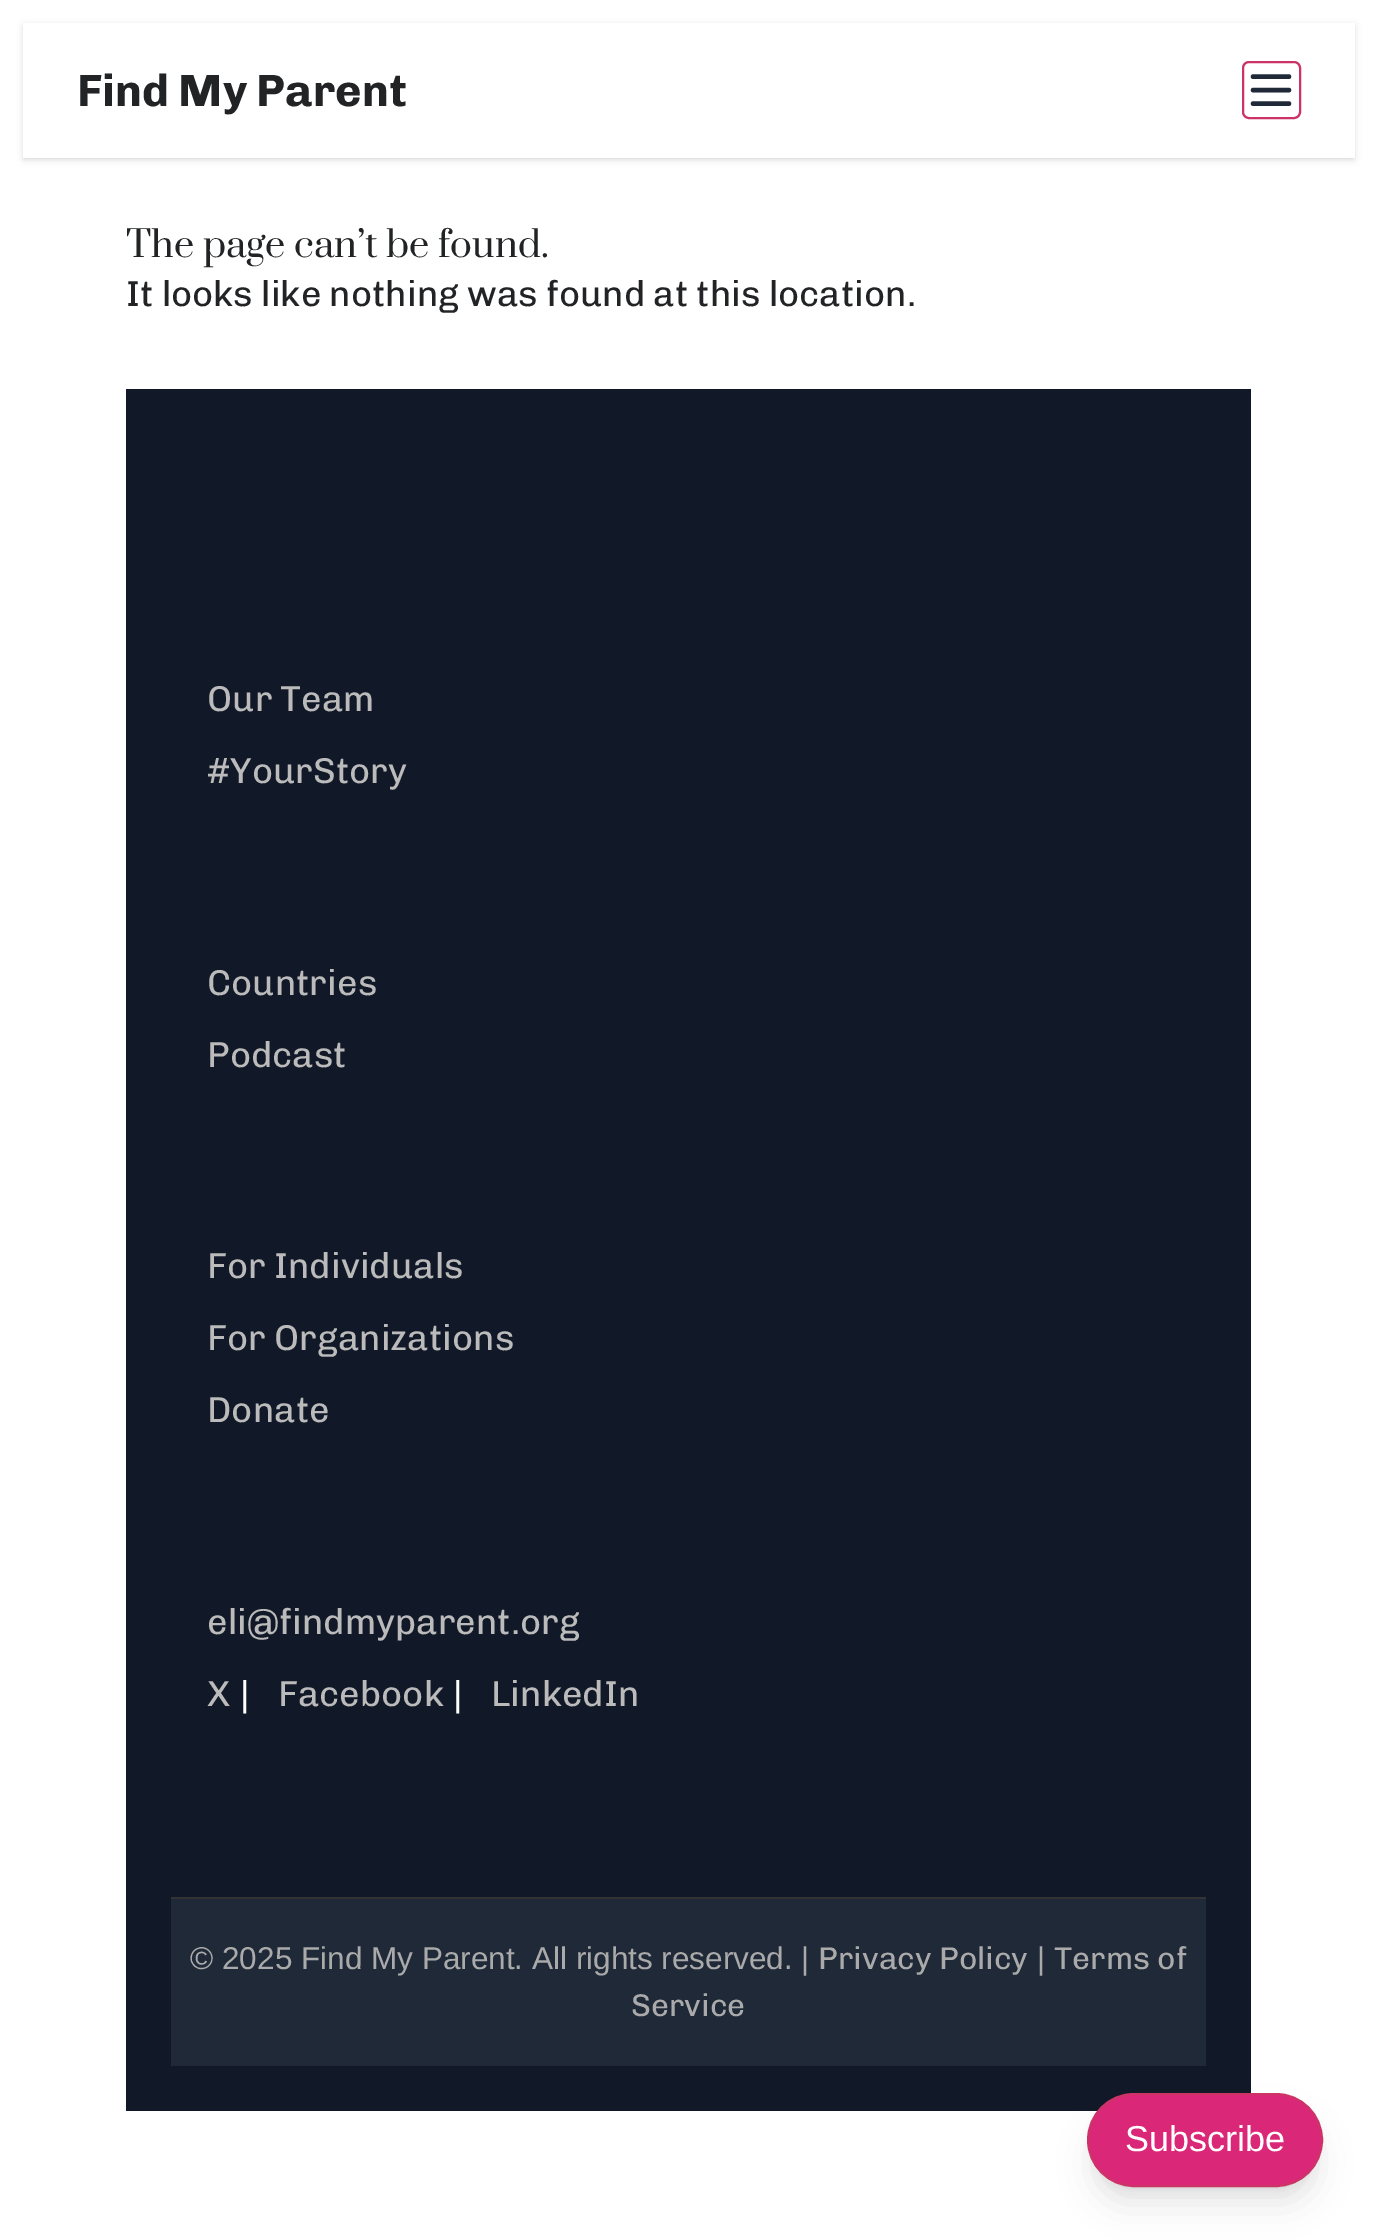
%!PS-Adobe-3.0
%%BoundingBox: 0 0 1377 2240
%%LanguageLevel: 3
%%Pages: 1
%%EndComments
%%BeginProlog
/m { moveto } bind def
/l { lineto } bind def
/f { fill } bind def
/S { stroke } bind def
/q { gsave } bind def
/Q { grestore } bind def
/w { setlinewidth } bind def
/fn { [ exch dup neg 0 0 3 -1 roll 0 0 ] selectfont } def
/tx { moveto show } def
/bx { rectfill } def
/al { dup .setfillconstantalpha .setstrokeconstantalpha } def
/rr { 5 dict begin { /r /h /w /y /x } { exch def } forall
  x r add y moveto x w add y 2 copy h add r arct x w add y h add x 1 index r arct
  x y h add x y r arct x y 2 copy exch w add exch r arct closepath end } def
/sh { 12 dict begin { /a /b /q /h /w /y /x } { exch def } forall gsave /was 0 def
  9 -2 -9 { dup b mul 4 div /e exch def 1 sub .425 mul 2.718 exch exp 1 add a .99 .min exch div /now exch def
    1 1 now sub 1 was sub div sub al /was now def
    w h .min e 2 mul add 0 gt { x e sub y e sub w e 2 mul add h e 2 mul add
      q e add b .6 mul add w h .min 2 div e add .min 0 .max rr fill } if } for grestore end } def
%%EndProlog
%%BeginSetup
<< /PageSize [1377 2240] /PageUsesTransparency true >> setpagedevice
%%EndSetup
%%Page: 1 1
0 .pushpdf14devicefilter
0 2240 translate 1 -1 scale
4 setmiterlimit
1 setgray
0 0 1377 2240 bx
0 setgray
25 27 1327 131 0 2 0.1 sh
23 25 1332 135 0 3.5 0.1 sh
1 setgray
23 23 1332 135 bx
/Chivo-Bold 45 fn
0.129 0.137 0.145 setrgbcolor
(Find My Parent) 77 106 tx
0.8 0.2 0.4 setrgbcolor
2 w
1243 62 57 56 6 rr S
0.122 0.161 0.216 setrgbcolor
4.5 w
1 setlinecap
1 setlinejoin
1253 76.5 m 1289 76.5 l 1253 90 m 1289 90 l 1253 103.5 m 1289 103.5 l S
/Prata-Regular 36 fn
0.129 0.137 0.145 setrgbcolor
(The page can’t be found.) 126 257 tx
/Chivo-Regular 36 fn
(It looks like nothing was found at this location.) 126 306 tx
0.067 0.094 0.153 setrgbcolor
126 389 1125 1722 bx
0.733 setgray
(Our Team) 207 711 tx
(#YourStory) 207 783 tx
(Countries) 207 995 tx
(Podcast) 207 1067 tx
(For Individuals) 207 1278 tx
(For Organizations) 207 1350 tx
(Donate) 207 1422 tx
(eli@findmyparent.org) 207 1634 tx
(X) 207 1706 tx
/LiberationSans-Regular 36 fn
1 setgray
(|) 240 1706 tx
/Chivo-Regular 36 fn
0.733 setgray
(Facebook) 278 1706 tx
/LiberationSans-Regular 36 fn
1 setgray
(|) 453 1706 tx
/Chivo-Regular 36 fn
0.733 setgray
(LinkedIn) 491 1706 tx
0.122 0.161 0.216 setrgbcolor
171 1899 1035 167 bx
0.2 setgray
171 1897 1035 2 bx
/LiberationSans-Regular 31.5 fn
0.667 setgray
(© 2025 Find My Parent. All rights reserved. |) 190 1969 tx
/Chivo-Regular 31.5 fn
(Privacy Policy) 818 1969 tx
/LiberationSans-Regular 31.5 fn
(|) 1037 1969 tx
/Chivo-Regular 31.5 fn
(Terms of) 1054 1969 tx
(Service) 631 2016 tx
0 setgray
1096 2111 218 76 38 7 0.1 sh
1094 2122 222 81 40.5 17 0.1 sh
0.859 0.153 0.467 setrgbcolor
1088 2094 234 92 46 rr q f Q
0.8 0.2 0.4 setrgbcolor
2 w
0 setlinecap
0 setlinejoin
S
/LiberationSans-Regular 36 fn
1 setgray
(Subscribe) 1125 2151 tx
.poppdf14devicefilter showpage
%%EOF
